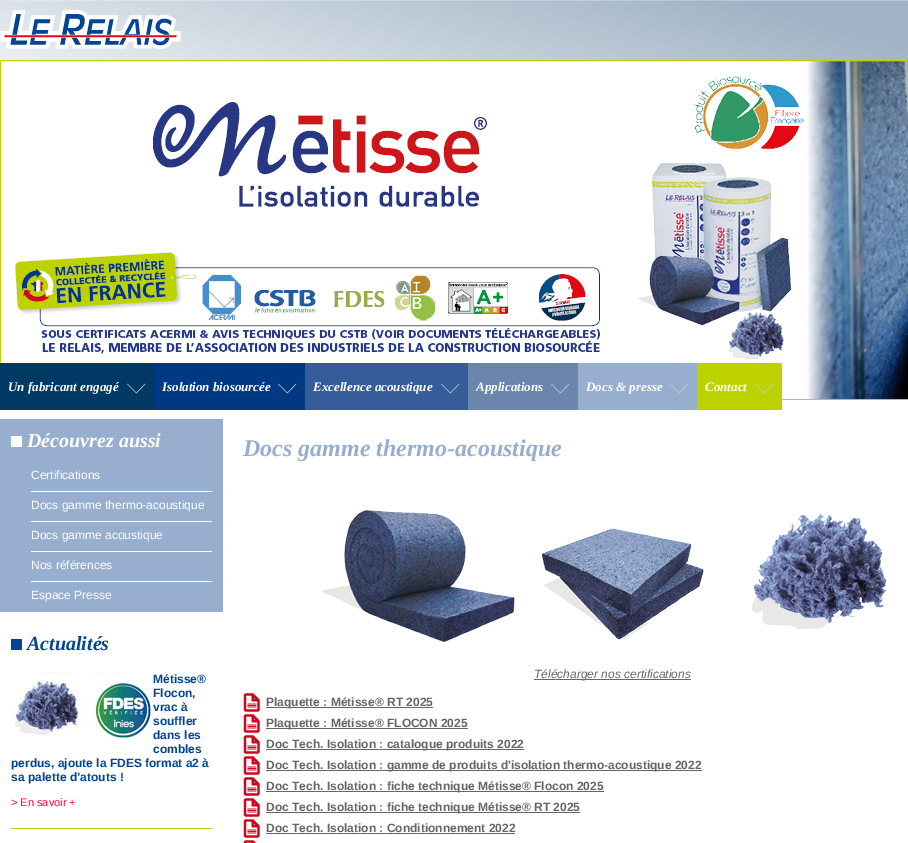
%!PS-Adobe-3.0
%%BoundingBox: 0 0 908 843
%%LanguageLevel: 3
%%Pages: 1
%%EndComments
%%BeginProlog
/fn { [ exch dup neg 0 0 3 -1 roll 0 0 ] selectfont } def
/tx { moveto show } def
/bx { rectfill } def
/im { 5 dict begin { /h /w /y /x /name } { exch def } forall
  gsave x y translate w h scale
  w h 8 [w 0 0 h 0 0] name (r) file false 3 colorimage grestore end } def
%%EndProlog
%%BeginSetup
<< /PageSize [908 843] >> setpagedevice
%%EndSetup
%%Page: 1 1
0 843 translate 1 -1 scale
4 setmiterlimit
1 setgray
0 0 908 843 bx
(image0.raw) 0 0 908 60 im
(image1.raw) 0 10 181 39 im
(image2.raw) 0 60 908 340 im
0 0.227 0.392 setrgbcolor
0 363 154 47 bx
(image3.raw) 127 363 19 31 im
/LiberationSerif-BoldItalic 13 fn
1 setgray
(Un fabricant engagé) 8 391 tx
0 0.224 0.514 setrgbcolor
154 363 151 47 bx
(image4.raw) 278 363 19 31 im
1 setgray
(Isolation biosourcée) 162 391 tx
0.212 0.361 0.604 setrgbcolor
305 363 163 47 bx
(image5.raw) 441 363 19 31 im
1 setgray
(Excellence acoustique) 313 391 tx
0.416 0.525 0.678 setrgbcolor
468 363 110 47 bx
(image6.raw) 551 363 19 31 im
1 setgray
(Applications) 476 391 tx
0.592 0.682 0.808 setrgbcolor
578 363 119 47 bx
(image7.raw) 670 363 19 31 im
1 setgray
(Docs & presse) 586 391 tx
0.745 0.824 0 setrgbcolor
697 363 85 47 bx
(image8.raw) 755 363 19 31 im
1 setgray
(Contact) 705 391 tx
0.592 0.682 0.808 setrgbcolor
0 419 223 193 bx
1 setgray
11 436 11 11 bx
/LiberationSerif-BoldItalic 20 fn
(Découvrez aussi) 27 447 tx
31 491 181 1 bx
/LiberationSans-Regular 12 fn
(Certifications) 31 479 tx
31 521 181 1 bx
(Docs gamme thermo-acoustique) 31 509 tx
31 551 181 1 bx
(Docs gamme acoustique) 31 539 tx
31 581 181 1 bx
(Nos références) 31 569 tx
(Espace Presse) 31 599 tx
0.012 0.271 0.573 setrgbcolor
11 639 11 11 bx
/LiberationSerif-BoldItalic 20 fn
(Actualités) 27 650 tx
(image9.raw) 11 672 142 72 im
/LiberationSans-Bold 12 fn
(Métisse®) 153 683 tx
(Flocon,) 153 697 tx
(vrac à) 153 711 tx
(souffler) 153 725 tx
(dans les) 153 739 tx
(combles) 153 753 tx
(perdus, ajoute la FDES format a2 à) 11 767 tx
(sa palette d’atouts !) 11 781 tx
/LiberationSans-Regular 11 fn
1 0 0.2 setrgbcolor
(> En savoir +) 11 806 tx
0.745 0.824 0 setrgbcolor
11 828 201 1 bx
/LiberationSerif-BoldItalic 24 fn
0.592 0.682 0.808 setrgbcolor
(Docs gamme thermo-acoustique) 243 456 tx
(image10.raw) 321 510 567 132 im
0.4 setgray
534 679 157 1 bx
/LiberationSans-Italic 12 fn
(Télécharger nos certifications) 534 678 tx
(image11.raw) 243 693 17 19 im
266 707 167 1 bx
/LiberationSans-Bold 12 fn
(Plaquette : Métisse® RT 2025) 266 706 tx
(image11.raw) 243 714 17 19 im
266 728 202 1 bx
(Plaquette : Métisse® FLOCON 2025) 266 727 tx
(image11.raw) 243 735 17 19 im
266 749 258 1 bx
(Doc Tech. Isolation : catalogue produits 2022) 266 748 tx
(image11.raw) 243 756 17 19 im
266 770 436 1 bx
(Doc Tech. Isolation : gamme de produits d'isolation thermo-acoustique 2022) 266 769 tx
(image11.raw) 243 777 17 19 im
266 791 338 1 bx
(Doc Tech. Isolation : fiche technique Métisse® Flocon 2025) 266 790 tx
(image11.raw) 243 798 17 19 im
266 812 314 1 bx
(Doc Tech. Isolation : fiche technique Métisse® RT 2025) 266 811 tx
(image11.raw) 243 819 17 19 im
(Doc Tech. Isolation : Conditionnement 2022) 266 832 tx
266 833 249 1 bx
(image12.raw) 243 840 13 3 im
showpage
%%EOF
